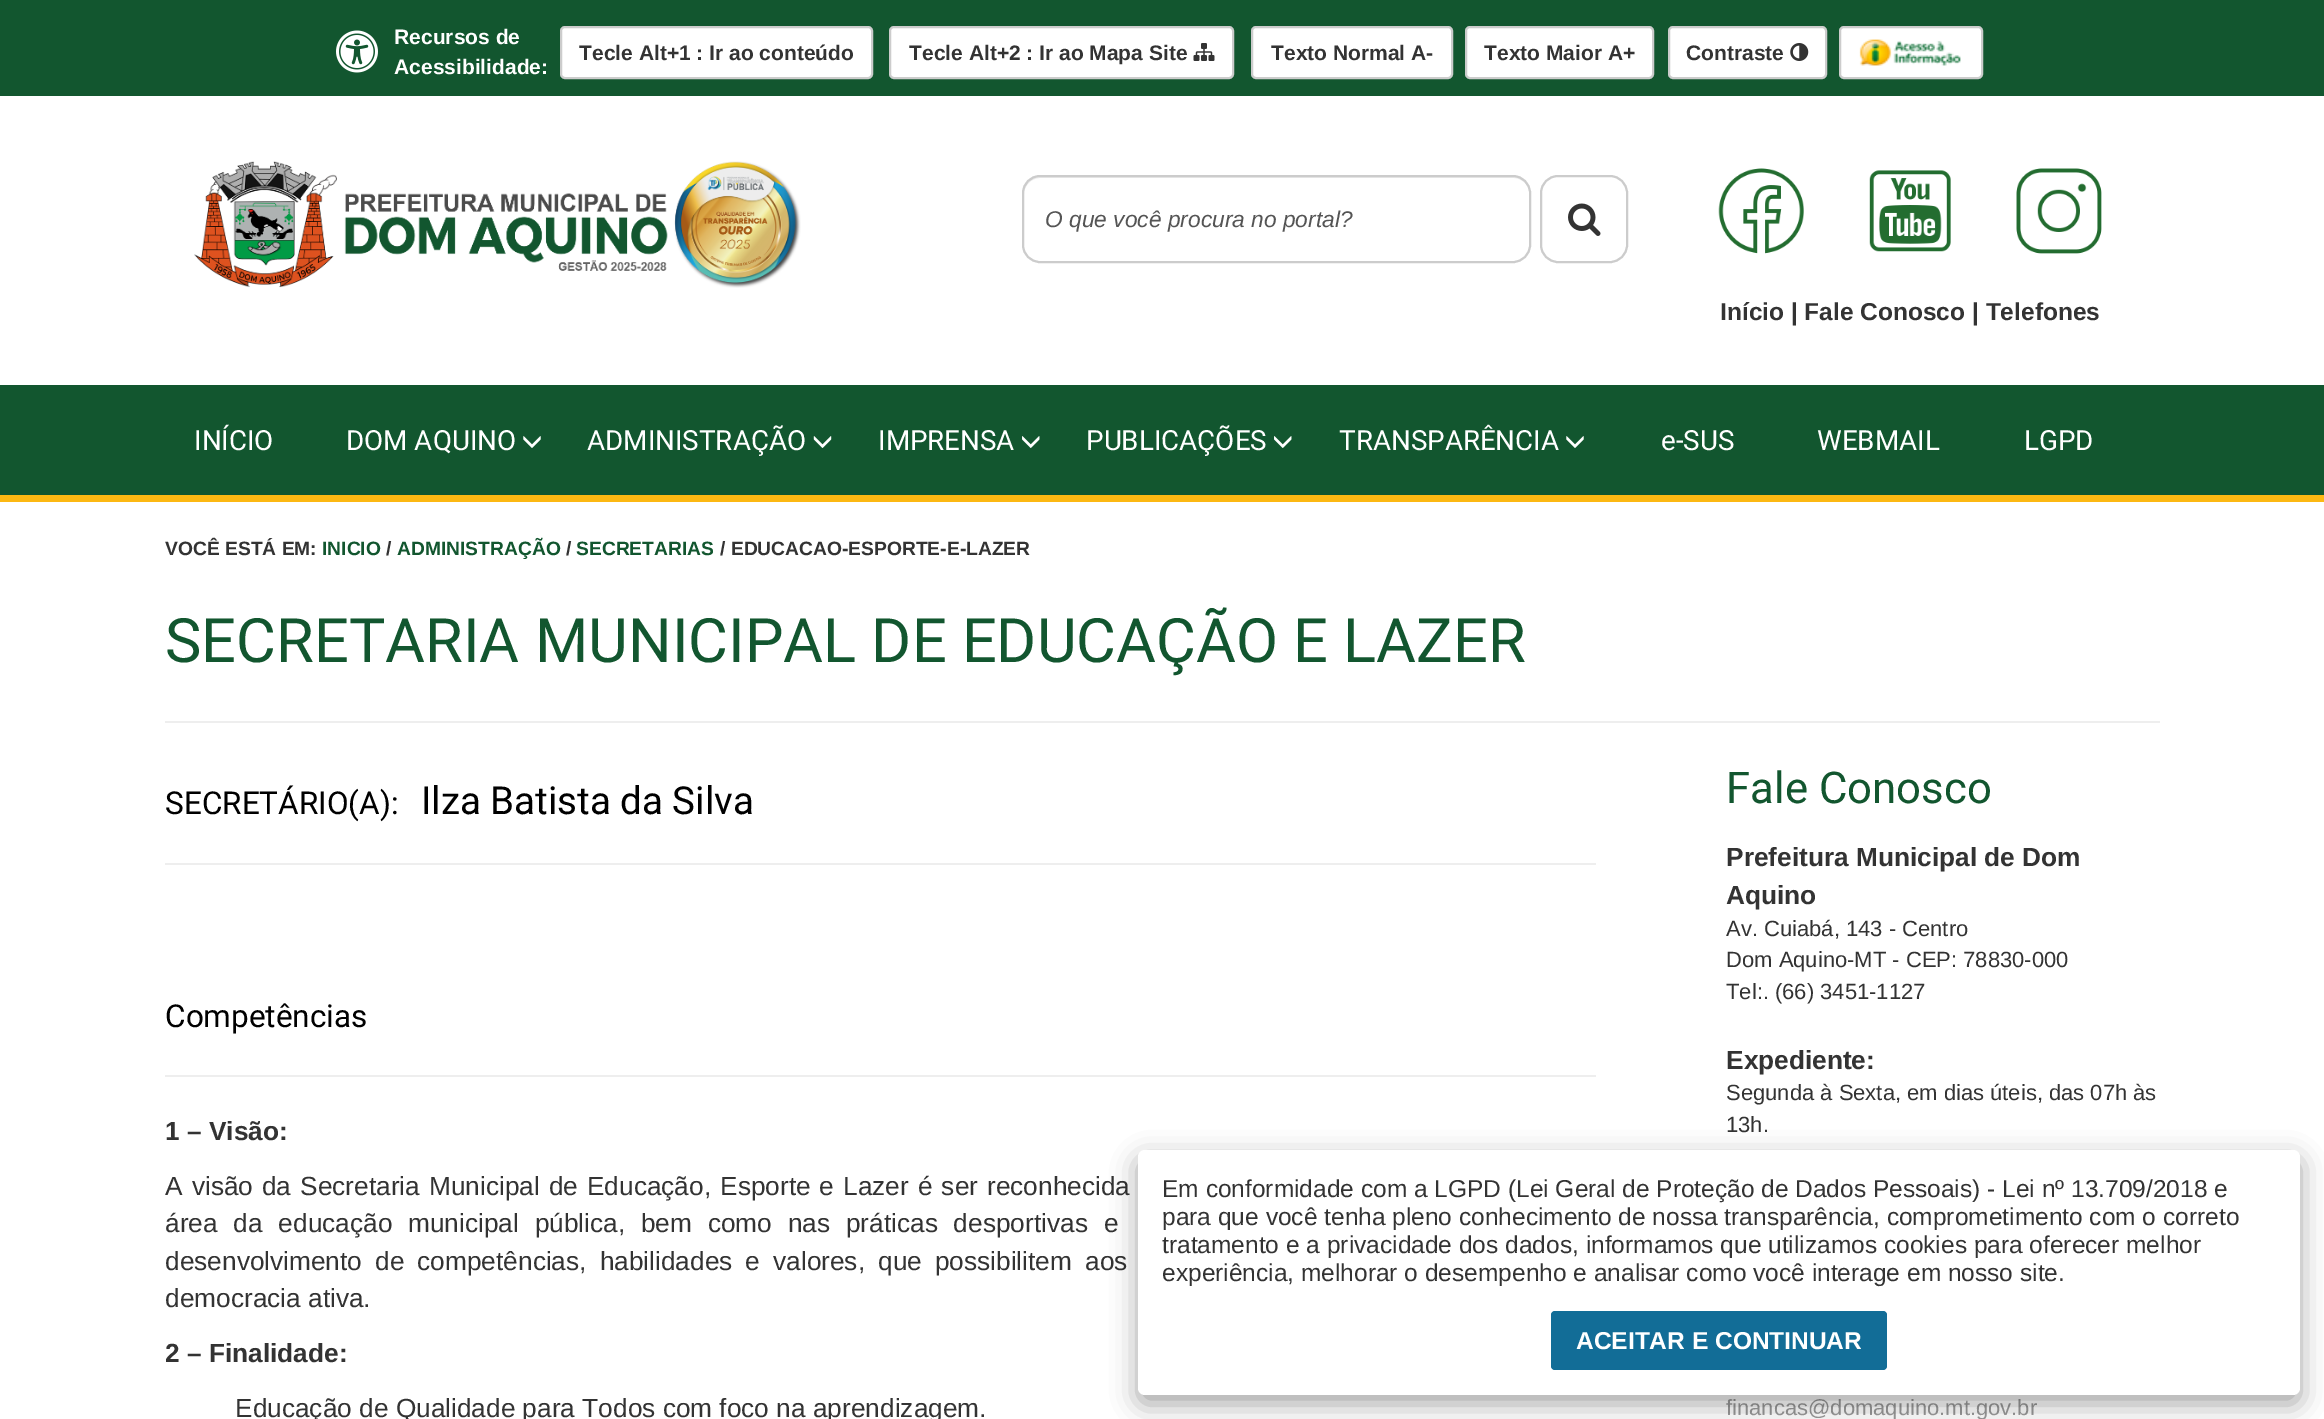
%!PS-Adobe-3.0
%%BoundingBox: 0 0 2324 1419
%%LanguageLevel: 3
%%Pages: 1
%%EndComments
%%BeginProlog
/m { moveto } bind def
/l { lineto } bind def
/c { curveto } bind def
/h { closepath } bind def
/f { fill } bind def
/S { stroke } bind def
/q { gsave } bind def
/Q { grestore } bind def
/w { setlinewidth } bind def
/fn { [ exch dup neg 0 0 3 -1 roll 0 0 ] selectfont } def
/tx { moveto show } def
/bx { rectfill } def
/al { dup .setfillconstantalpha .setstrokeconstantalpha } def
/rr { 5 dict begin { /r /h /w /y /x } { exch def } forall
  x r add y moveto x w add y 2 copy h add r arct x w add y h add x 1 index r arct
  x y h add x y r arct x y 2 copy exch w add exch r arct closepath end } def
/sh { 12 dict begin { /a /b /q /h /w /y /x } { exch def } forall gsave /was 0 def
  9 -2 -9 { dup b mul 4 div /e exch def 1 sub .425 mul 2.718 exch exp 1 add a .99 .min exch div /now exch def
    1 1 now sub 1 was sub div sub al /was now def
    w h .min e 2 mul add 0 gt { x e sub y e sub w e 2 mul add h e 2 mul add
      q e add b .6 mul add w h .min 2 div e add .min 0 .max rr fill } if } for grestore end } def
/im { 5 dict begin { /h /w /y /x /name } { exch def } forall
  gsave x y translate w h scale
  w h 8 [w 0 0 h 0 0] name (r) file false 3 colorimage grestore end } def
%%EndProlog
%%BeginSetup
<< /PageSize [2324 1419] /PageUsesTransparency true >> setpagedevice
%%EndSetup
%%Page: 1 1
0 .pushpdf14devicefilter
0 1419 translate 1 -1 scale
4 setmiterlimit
1 setgray
0 0 2324 1419 bx
0.071 0.337 0.184 setrgbcolor
0 0 2324 96 bx
(image0.raw) 336 30 42 43 im
/LiberationSans-Bold 21 fn
1 setgray
(Recursos de) 394 44 tx
(Acessibilidade:) 394 74 tx
561 27 311 51 4 rr q f Q
0.8 setgray
2 w
S
0.2 setgray
(Tecle Alt+1 : Ir ao conteúdo) 579 60 tx
1 setgray
890 27 343 51 4 rr q f Q
0.8 setgray
S
0.2 setgray
(Tecle Alt+2 : Ir ao Mapa Site) 909 60 tx
(image1.raw) 1193 43 22 18 im
1 setgray
1252 27 200 51 4 rr q f Q
0.8 setgray
S
0.2 setgray
(Texto Normal A-) 1271 60 tx
1 setgray
1466 27 187 51 4 rr q f Q
0.8 setgray
S
0.2 setgray
(Texto Maior A+) 1484 60 tx
1 setgray
1669 27 157 51 4 rr q f Q
0.8 setgray
S
0.2 setgray
(Contraste) 1686 60 tx
(image2.raw) 1790 43 19 18 im
1 setgray
1840 27 142 51 4 rr q f Q
0.8 setgray
S
(image3.raw) 1859 39 102 27 im
(image4.raw) 194 161 607 127 im
0.925 setgray
1040 178 m 1514 178 l 1522 178 1530 186 1530 194 c 1530 193 l 1530 184 1523 177 1514 177 c 1040 177 l 1031 177 1024 184 1024 193 c 1024 194 l 1024 186 1031 178 1040 178 c h f
0.8 setgray
1023 176 507 86 17 rr S
/LiberationSans-Italic 22.75 fn
0.333 setgray
(O que você procura no portal?) 1045 227 tx
0.8 setgray
1541 176 86 86 17 rr S
(image5.raw) 1568 203 33 33 im
(image6.raw) 1718 168 86 86 im
(image7.raw) 1869 170 82 82 im
(image8.raw) 2016 168 86 86 im
/LiberationSans-Bold 24.5 fn
0.2 setgray
(Início | Fale Conosco | Telefones) 1720 320 tx
0.988 0.722 0.075 setrgbcolor
0 495 2324 7 bx
0.071 0.337 0.184 setrgbcolor
0 385 2324 110 bx
/Roboto-Regular 27.75 fn
1 setgray
(INÍCIO) 194 450 tx
(DOM AQUINO) 346 450 tx
(image9.raw) 523 436 18 12 im
(ADMINISTRAÇÃO) 587 450 tx
(image10.raw) 813 436 19 12 im
(IMPRENSA) 878 450 tx
(image11.raw) 1022 436 18 12 im
(PUBLICAÇÕES) 1086 450 tx
(image11.raw) 1274 436 18 12 im
(TRANSPARÊNCIA) 1339 450 tx
(image9.raw) 1566 436 18 12 im
(e-SUS) 1661 450 tx
(WEBMAIL) 1817 450 tx
(LGPD) 2024 450 tx
/LiberationSans-Bold 19.25 fn
0.2 setgray
(VOCÊ ESTÁ EM:) 165 555 tx
0.071 0.337 0.184 setrgbcolor
(INICIO) 322 555 tx
0.2 setgray
(/) 386 555 tx
0.071 0.337 0.184 setrgbcolor
(ADMINISTRAÇÃO) 397 555 tx
0.2 setgray
(/) 566 555 tx
0.071 0.337 0.184 setrgbcolor
(SECRETARIAS) 576 555 tx
0.2 setgray
(/ EDUCACAO-ESPORTE-E-LAZER) 720 555 tx
/Roboto-Regular 61.25 fn
0.071 0.337 0.184 setrgbcolor
(SECRETARIA MUNICIPAL DE EDUCAÇÃO E LAZER) 165 662 tx
0.933 setgray
165 721 1995 2 bx
/Roboto-Regular 31.5 fn
0 setgray
(SECRETÁRIO\(A\):) 165 814 tx
/Roboto-Regular 38.5 fn
(Ilza Batista da Silva) 421 814 tx
0.933 setgray
165 863 1431 2 bx
/Roboto-Regular 31.5 fn
0 setgray
(Competências) 165 1027 tx
0.933 setgray
165 1075 1431 2 bx
/LiberationSans-Bold 26.25 fn
0.2 setgray
(1 – Visão:) 165 1140 tx
/LiberationSans-Regular 26.25 fn
165 1195 m 1.75 0 32 (A visão da Secretaria Municipal de Educação, Esporte e Lazer é ser reconhecida) widthshow
165 1232 m 8.5 0 32 (área da educação municipal pública, bem como nas práticas desportivas e) widthshow
165 1270 m 5.75 0 32 (desenvolvimento de competências, habilidades e valores, que possibilitem aos) widthshow
(democracia ativa.) 165 1307 tx
/LiberationSans-Bold 26.25 fn
(2 – Finalidade:) 165 1362 tx
/LiberationSans-Regular 26.25 fn
(Educação de Qualidade para Todos com foco na aprendizagem.) 235 1417 tx
/Roboto-Regular 43.75 fn
0.071 0.337 0.184 setrgbcolor
(Fale Conosco) 1726 803 tx
/LiberationSans-Bold 26.25 fn
0.2 setgray
(Prefeitura Municipal de Dom) 1726 866 tx
(Aquino) 1726 904 tx
/LiberationSans-Regular 22 fn
(Av. Cuiabá, 143 - Centro) 1726 936 tx
(Dom Aquino-MT - CEP: 78830-000) 1726 967 tx
(Tel:. \(66\) 3451-1127) 1726 999 tx
/LiberationSans-Bold 26.25 fn
(Expediente:) 1726 1069 tx
/LiberationSans-Regular 22 fn
(Segunda à Sexta, em dias úteis, das 07h às) 1726 1100 tx
(13h.) 1726 1132 tx
0.604 setgray
(financas@domaquino.mt.gov.br) 1726 1415 tx
0 setgray
1138 1159 1162 245 7 13 0.35 sh
1 setgray
1138 1150 1162 245 7 rr f
/LiberationSans-Regular 24.5 fn
0.2 setgray
(Em conformidade com a LGPD \(Lei Geral de Proteção de Dados Pessoais\) - Lei nº 13.709/2018 e) 1162 1197 tx
(para que você tenha pleno conhecimento de nossa transparência, comprometimento com o correto) 1162 1225 tx
(tratamento e a privacidade dos dados, informamos que utilizamos cookies para oferecer melhor) 1162 1253 tx
(experiência, melhorar o desempenho e analisar como você interage em nosso site.) 1162 1281 tx
0.071 0.427 0.592 setrgbcolor
1551 1311 336 59 4 rr f
/LiberationSans-Bold 24.5 fn
1 setgray
(ACEITAR E CONTINUAR) 1576 1349 tx
.poppdf14devicefilter showpage
%%EOF
